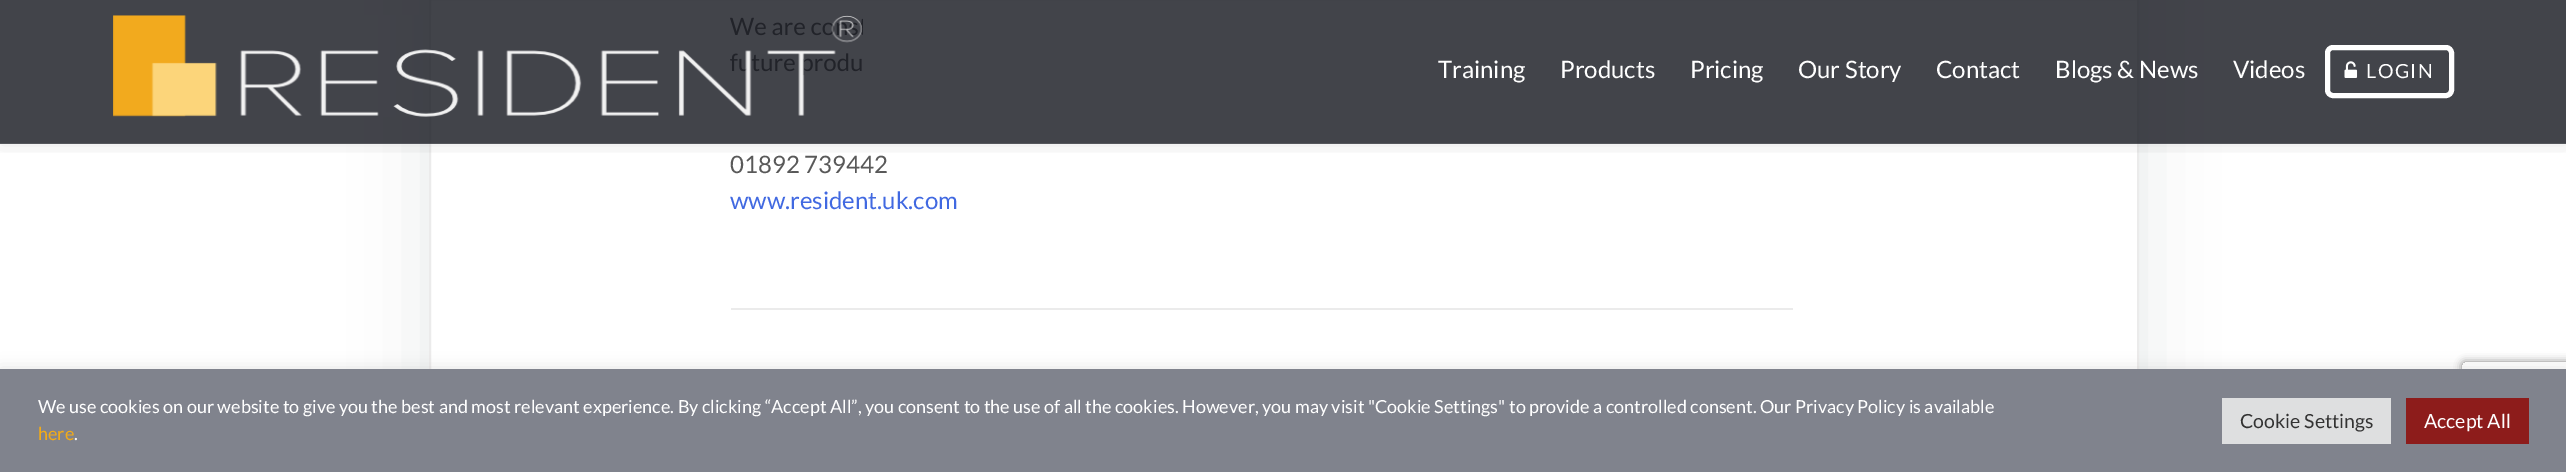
%!PS-Adobe-3.0
%%BoundingBox: 0 0 2566 472
%%LanguageLevel: 3
%%Pages: 1
%%EndComments
%%BeginProlog
/m { moveto } bind def
/l { lineto } bind def
/c { curveto } bind def
/h { closepath } bind def
/S { stroke } bind def
/q { gsave } bind def
/Q { grestore } bind def
/w { setlinewidth } bind def
/fn { [ exch dup neg 0 0 3 -1 roll 0 0 ] selectfont } def
/tx { moveto show } def
/bx { rectfill } def
/al { dup .setfillconstantalpha .setstrokeconstantalpha } def
/rr { 5 dict begin { /r /h /w /y /x } { exch def } forall
  x r add y moveto x w add y 2 copy h add r arct x w add y h add x 1 index r arct
  x y h add x y r arct x y 2 copy exch w add exch r arct closepath end } def
/sh { 12 dict begin { /a /b /q /h /w /y /x } { exch def } forall gsave /was 0 def
  9 -2 -9 { dup b mul 4 div /e exch def 1 sub .425 mul 2.718 exch exp 1 add a .99 .min exch div /now exch def
    1 1 now sub 1 was sub div sub al /was now def
    w h .min e 2 mul add 0 gt { x e sub y e sub w e 2 mul add h e 2 mul add
      q e add b .6 mul add w h .min 2 div e add .min 0 .max rr fill } if } for grestore end } def
/im { 5 dict begin { /h /w /y /x /name } { exch def } forall
  gsave x y translate w h scale
  w h 8 [w 0 0 h 0 0] name (r) file false 3 colorimage grestore end } def
%%EndProlog
%%BeginSetup
<< /PageSize [2566 472] /PageUsesTransparency true >> setpagedevice
%%EndSetup
%%Page: 1 1
0 .pushpdf14devicefilter
0 472 translate 1 -1 scale
4 setmiterlimit
1 setgray
0 0 2566 472 bx
q
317 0 m 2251 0 l 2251 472 l 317 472 l h 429 -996 m 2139 -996 l 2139 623 l 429 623 l h eoclip newpath
0.337 0.451 0.475 setrgbcolor
429 -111 1710 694 0 37 0.15 sh
Q
0.922 setgray
2 w
430 -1 1708 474 rectstroke
q
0 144 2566 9 rectclip
0 setgray
0 0 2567 144 0 11 0.1 sh
Q
0.8 al
0.075 0.082 0.114 setrgbcolor
0 0 2566 144 bx
0.1 al
1 setgray
0 143 2566 2 bx
1 al
(image0.raw) 113 15 750 102 im
/Lato-Regular 24 fn
(Training) 1438 78 tx
(Products) 1560 78 tx
(Pricing) 1690 78 tx
(Our Story) 1798 78 tx
(Contact) 1936 78 tx
(Blogs & News) 2055 78 tx
(Videos) 2233 78 tx
5 w
2327.5 47.5 124 48 5.5 rr S
(image1.raw) 2344 61 14 17 im
/Lato-Regular 19.5 fn
2366 78 m 1.5 0 (LOGIN) ashow
0.922 setgray
731 308 1062 2 bx
/Lato-Regular 24 fn
0.349 setgray
(01892 739442) 730 173 tx
0.255 0.412 0.882 setrgbcolor
(www.resident.uk.com) 730 209 tx
q
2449 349 m 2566 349 l 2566 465 l 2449 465 l h 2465 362 m 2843 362 l 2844.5 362 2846 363.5 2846 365 c 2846 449 l 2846 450.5 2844.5 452 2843 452 c 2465 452 l 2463.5 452 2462 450.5 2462 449 c 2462 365 l 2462 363.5 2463.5 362 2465 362 c h eoclip newpath
0.502 setgray
2462 362 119 90 3 4 1 sh
Q
0.675 0.671 0.671 setrgbcolor
0 368 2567 103 0 7.5 0.3 sh
0.502 0.514 0.553 setrgbcolor
0 369 2566 103 bx
/Lato-Regular 18 fn
1 setgray
(We use cookies on our website to give you the best and most relevant experience. By clicking “Accept All”, you consent to the use of all the cookies. However, you may visit "Cookie Settings" to provide a controlled consent. Our Privacy Policy is available) 38 413 tx
0.953 0.671 0.09 setrgbcolor
(here) 38 440 tx
1 setgray
(.) 74 440 tx
0.871 0.875 0.878 setrgbcolor
2222 398 169 46 bx
/Lato-Regular 19.5 fn
0.2 setgray
(Cookie Settings) 2240 428 tx
0.553 0.11 0.106 setrgbcolor
2406 398 123 46 bx
1 setgray
(Accept All) 2424 428 tx
.poppdf14devicefilter showpage
%%EOF
